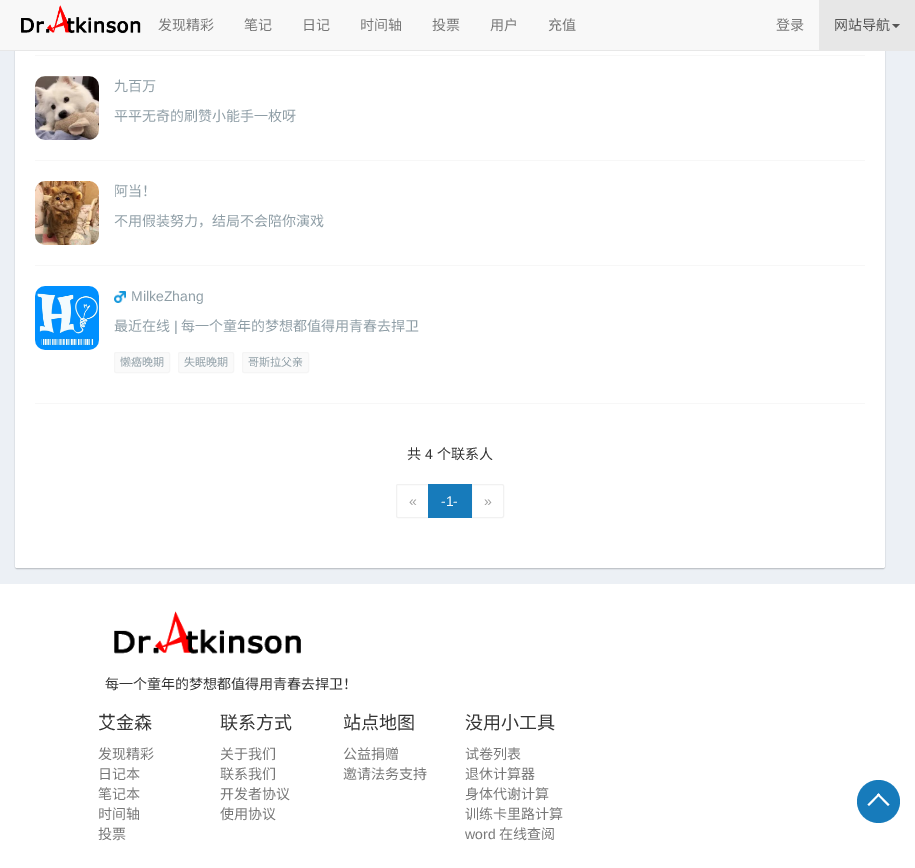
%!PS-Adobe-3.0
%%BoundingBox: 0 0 915 868
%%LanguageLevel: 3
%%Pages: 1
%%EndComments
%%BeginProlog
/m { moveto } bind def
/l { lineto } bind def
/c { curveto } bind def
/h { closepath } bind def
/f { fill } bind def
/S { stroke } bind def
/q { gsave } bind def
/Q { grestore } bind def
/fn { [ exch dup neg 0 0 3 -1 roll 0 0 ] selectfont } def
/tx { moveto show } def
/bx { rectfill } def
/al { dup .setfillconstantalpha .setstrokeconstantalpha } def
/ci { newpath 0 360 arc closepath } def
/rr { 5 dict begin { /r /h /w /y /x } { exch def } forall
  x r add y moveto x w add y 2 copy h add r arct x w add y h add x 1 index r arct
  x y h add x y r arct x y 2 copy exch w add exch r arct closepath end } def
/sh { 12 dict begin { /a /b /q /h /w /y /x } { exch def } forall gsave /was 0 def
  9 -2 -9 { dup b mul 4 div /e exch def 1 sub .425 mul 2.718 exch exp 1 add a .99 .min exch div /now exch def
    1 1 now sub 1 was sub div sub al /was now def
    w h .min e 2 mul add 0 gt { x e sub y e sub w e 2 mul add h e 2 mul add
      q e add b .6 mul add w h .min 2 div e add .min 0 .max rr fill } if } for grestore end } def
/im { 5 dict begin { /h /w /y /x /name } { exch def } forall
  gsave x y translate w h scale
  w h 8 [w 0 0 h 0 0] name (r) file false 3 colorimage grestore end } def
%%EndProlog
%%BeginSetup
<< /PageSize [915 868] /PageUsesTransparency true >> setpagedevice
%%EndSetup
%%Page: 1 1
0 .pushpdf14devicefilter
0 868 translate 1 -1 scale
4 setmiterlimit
1 setgray
0 0 915 868 bx
0.925 0.941 0.961 setrgbcolor
0 51 915 533 bx
0 setgray
15 -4 870 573 2 0.5 0.2 sh
1 setgray
15 -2 870 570 2 rr f
0.973 setgray
0 0 819 50 bx
0.906 setgray
0 50 915 1 bx
(image0.raw) 21 5 120 29 im
/NotoSansCJKSC-Regular 14 fn
0.467 setgray
(发现精彩) 158 30 tx
(笔记) 244 30 tx
(日记) 302 30 tx
(时间轴) 360 30 tx
(投票) 432 30 tx
(用户) 490 30 tx
(充值) 548 30 tx
(登录) 776 30 tx
0.906 setgray
819 0 96 50 bx
0.333 setgray
(网站导航) 834 30 tx
892 24 m 900 24 l 896 28 l h f
0.969 setgray
35 55 830 1 bx
(image1.raw) 35 76 64 64 im
0.561 0.62 0.651 setrgbcolor
(九百万) 114 91 tx
(平平无奇的刷赞小能手一枚呀) 114 121 tx
0.969 setgray
35 160 830 1 bx
(image2.raw) 35 181 64 64 im
0.561 0.62 0.651 setrgbcolor
(阿当！) 114 196 tx
(不用假装努力，结局不会陪你演戏) 114 226 tx
0.969 setgray
35 265 830 1 bx
(image3.raw) 35 286 64 64 im
(image4.raw) 114 291 12 12 im
/LiberationSans-Regular 14 fn
0.561 0.62 0.651 setrgbcolor
(MilkeZhang) 131 301 tx
/NotoSansCJKSC-Regular 14 fn
(最近在线) 114 331 tx
/LiberationSans-Regular 14 fn
(|) 174 331 tx
/NotoSansCJKSC-Regular 14 fn
(每一个童年的梦想都值得用青春去捍卫) 181 331 tx
0.98 setgray
114.5 352.5 55 20 1.5 rr q f Q
0.961 setgray
S
/NotoSansCJKSC-Regular 11 fn
0.561 0.62 0.651 setrgbcolor
(懒癌晚期) 120 366 tx
0.98 setgray
178.5 352.5 55 20 1.5 rr q f Q
0.961 setgray
S
0.561 0.62 0.651 setrgbcolor
(失眠晚期) 184 366 tx
0.98 setgray
242.5 352.5 66 20 1.5 rr q f Q
0.961 setgray
S
0.561 0.62 0.651 setrgbcolor
(哥斯拉父亲) 248 366 tx
0.969 setgray
35 403 830 1 bx
/NotoSansCJKSC-Regular 14 fn
0.2 setgray
(共) 407 459 tx
/LiberationSans-Regular 14 fn
(4) 425 459 tx
/NotoSansCJKSC-Regular 14 fn
(个联系人) 437 459 tx
0.945 setgray
398 484.5 m 428.5 484.5 l 428.5 517.5 l 398 517.5 l 397 517.5 396.5 517 396.5 516 c 396.5 486 l 396.5 485 397 484.5 398 484.5 c h S
/LiberationSans-Regular 14 fn
0.627 setgray
(«) 409 506 tx
0.945 setgray
471.5 484.5 m 502 484.5 l 503 484.5 503.5 485 503.5 486 c 503.5 516 l 503.5 517 503 517.5 502 517.5 c 471.5 517.5 l h S
0.09 0.482 0.733 setrgbcolor
428 484 44 34 bx
1 setgray
(-1-) 441 506 tx
0.627 setgray
(») 484 506 tx
0.09 0.482 0.733 setrgbcolor
878.5 801.5 21.5 ci f
1 setgray
867.5 804.5 m 878.5 793.5 l 880 794.5 l 869 806 l h f
877 794.5 m 878.5 793.5 l 889.5 804.5 l 888 806 l h f
(image5.raw) 114 611 187 43 im
/NotoSansCJKSC-Regular 14 fn
0.2 setgray
(每一个童年的梦想都值得用青春去捍卫！) 105 689 tx
/NotoSansCJKSC-Regular 18 fn
(艾金森) 98 729 tx
/NotoSansCJKSC-Regular 14 fn
0.467 setgray
(发现精彩) 98 759 tx
(日记本) 98 779 tx
(笔记本) 98 799 tx
(时间轴) 98 819 tx
(投票) 98 839 tx
/NotoSansCJKSC-Regular 18 fn
0.2 setgray
(联系方式) 220 729 tx
/NotoSansCJKSC-Regular 14 fn
0.467 setgray
(关于我们) 220 759 tx
(联系我们) 220 779 tx
(开发者协议) 220 799 tx
(使用协议) 220 819 tx
/NotoSansCJKSC-Regular 18 fn
0.2 setgray
(站点地图) 343 729 tx
/NotoSansCJKSC-Regular 14 fn
0.467 setgray
(公益捐赠) 343 759 tx
(邀请法务支持) 343 779 tx
/NotoSansCJKSC-Regular 18 fn
0.2 setgray
(没用小工具) 465 729 tx
/NotoSansCJKSC-Regular 14 fn
0.467 setgray
(试卷列表) 465 759 tx
(退休计算器) 465 779 tx
(身体代谢计算) 465 799 tx
(训练卡里路计算) 465 819 tx
/LiberationSans-Regular 14 fn
(word) 465 839 tx
/NotoSansCJKSC-Regular 14 fn
(在线查阅) 499 839 tx
.poppdf14devicefilter showpage
%%EOF
